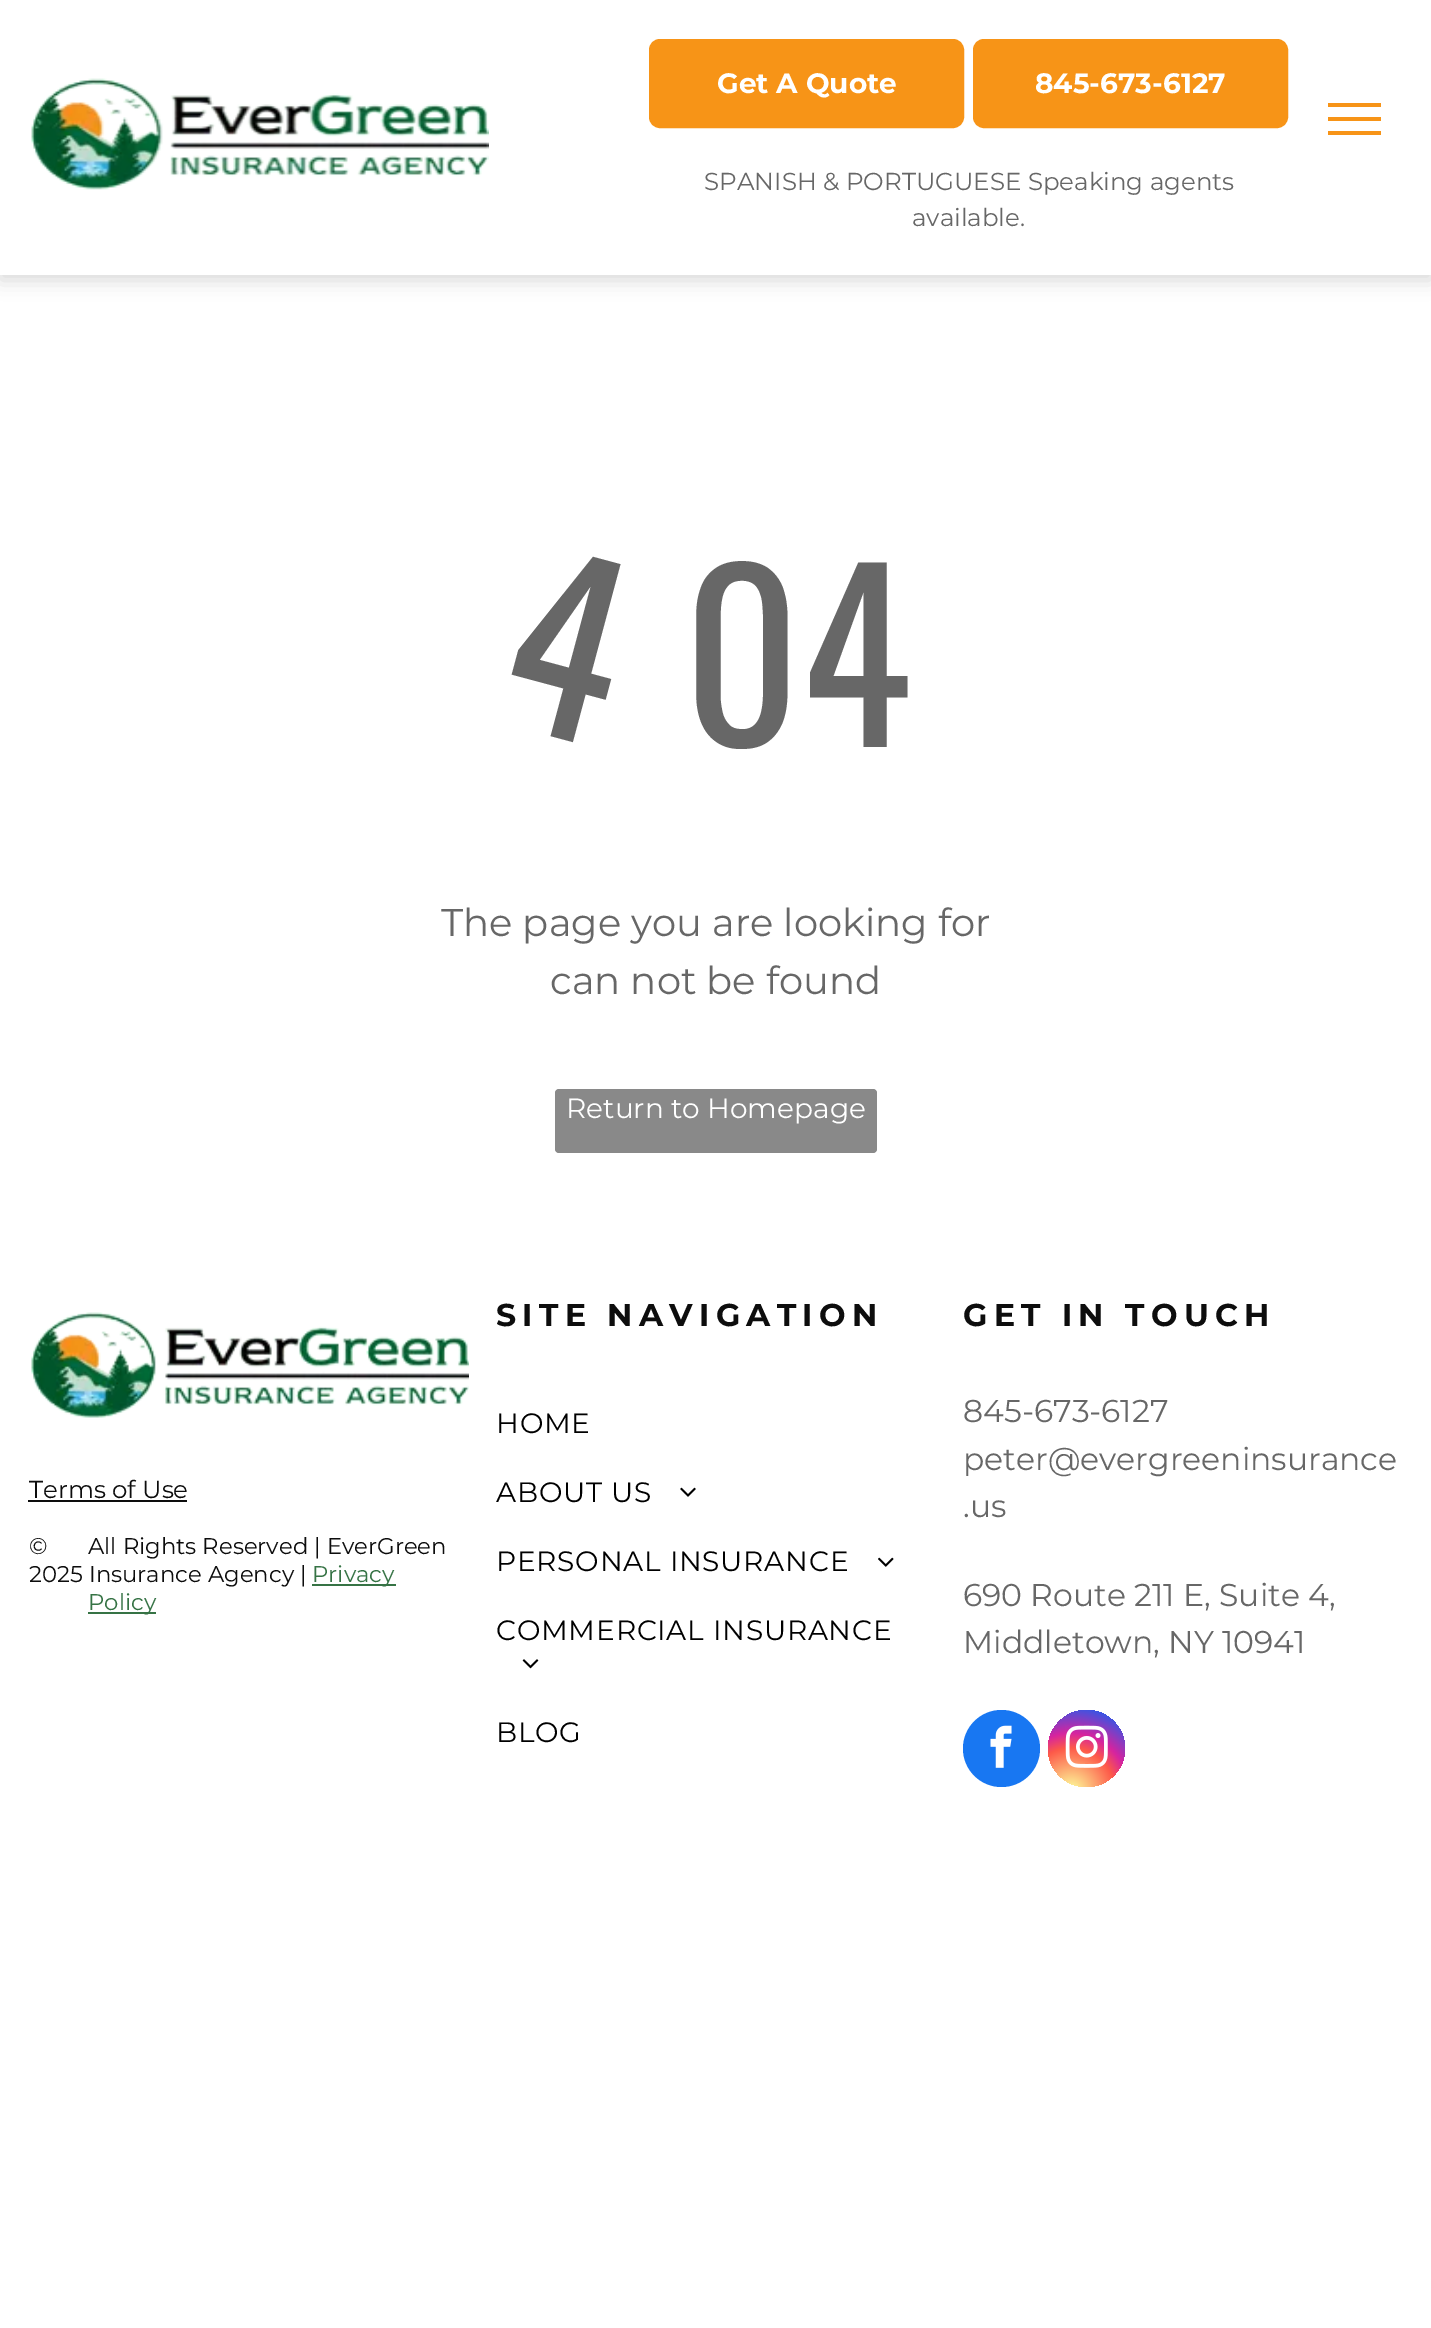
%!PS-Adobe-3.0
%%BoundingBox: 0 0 1431 2328
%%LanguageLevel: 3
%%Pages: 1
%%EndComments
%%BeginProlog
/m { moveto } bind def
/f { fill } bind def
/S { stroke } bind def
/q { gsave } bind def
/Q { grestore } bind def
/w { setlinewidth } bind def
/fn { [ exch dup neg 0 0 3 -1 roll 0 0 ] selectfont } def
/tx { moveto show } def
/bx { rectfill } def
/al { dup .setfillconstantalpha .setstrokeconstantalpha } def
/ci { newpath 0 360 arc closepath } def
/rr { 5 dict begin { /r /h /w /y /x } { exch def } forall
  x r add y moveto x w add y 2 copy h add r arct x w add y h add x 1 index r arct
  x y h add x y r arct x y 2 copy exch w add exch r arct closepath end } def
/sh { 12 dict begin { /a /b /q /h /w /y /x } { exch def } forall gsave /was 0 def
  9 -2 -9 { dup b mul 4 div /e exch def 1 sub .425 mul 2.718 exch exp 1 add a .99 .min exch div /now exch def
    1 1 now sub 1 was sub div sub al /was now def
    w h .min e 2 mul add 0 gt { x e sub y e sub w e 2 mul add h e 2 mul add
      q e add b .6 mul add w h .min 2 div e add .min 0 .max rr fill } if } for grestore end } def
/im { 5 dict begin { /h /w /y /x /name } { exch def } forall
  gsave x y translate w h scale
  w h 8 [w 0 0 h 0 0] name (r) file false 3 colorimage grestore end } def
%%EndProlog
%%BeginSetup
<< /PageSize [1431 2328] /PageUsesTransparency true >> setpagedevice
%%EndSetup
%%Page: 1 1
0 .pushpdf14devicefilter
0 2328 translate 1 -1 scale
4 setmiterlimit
1 setgray
0 0 1431 2328 bx
0 setgray
0 5 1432 275 0 9.5 0.15 sh
1 setgray
0 0 1431 275 bx
(image0.raw) 31 78 458 112 im
0.969 0.58 0.09 setrgbcolor
651 41 311 85 9 rr q f Q
4 w
S
/Montserrat-Bold 28 fn
1 setgray
(Get A Quote) 717 93 tx
0.969 0.58 0.09 setrgbcolor
975 41 311 85 9 rr q f Q
S
1 setgray
(845-673-6127) 1035 93 tx
/Montserrat-Regular 24.5 fn
0.404 setgray
(SPANISH & PORTUGUESE Speaking agents) 704 190 tx
(available.) 912 226 tx
0.969 0.58 0.09 setrgbcolor
1328 103 53 4 bx
1328 117 53 4 bx
1328 131 53 4 bx
/Oswald-Regular 228 fn
0.404 setgray
q 490 720 translate 15 rotate 0 0 m (4) show Q
(04) 683 747 tx
/Montserrat-Regular 38.5 fn
(The page you are looking for) 441 936 tx
(can not be found) 550 994 tx
0.537 setgray
555 1089 322 64 4 rr f
/Montserrat-Regular 28 fn
1 setgray
(Return to Homepage) 566 1118 tx
(image1.raw) 31 1312 438 106 im
/Montserrat-Regular 24.5 fn
0.051 setgray
(Terms of Use) 29 1498 tx
28 1500 159 2 bx
/Montserrat-Regular 22.75 fn
(All Rights Reserved | EverGreen) 88 1554 tx
0.212 0.451 0.271 setrgbcolor
312 1584 84 2 bx
(Privacy) 312 1582 tx
88 1612 68 2 bx
(Policy) 88 1610 tx
0.051 setgray
(©) 29 1554 tx
(2025 Insurance Agency |) 29 1582 tx
/Montserrat-Bold 31.5 fn
496 1326 m 6.25 0 (SITE NAVIGATION) ashow
/Montserrat-Regular 28 fn
0 setgray
496 1433 m 0.8 0 (HOME) ashow
496 1502 m 0.8 0 (ABOUT US) ashow
(image2.raw) 680 1487 16 10 im
496 1571 m 0.8 0 (PERSONAL INSURANCE) ashow
(image3.raw) 878 1557 16 10 im
496 1640 m 0.8 0 (COMMERCIAL INSURANCE) ashow
(image4.raw) 522 1659 17 10 im
496 1742 m 0.8 0 (BLOG) ashow
/Montserrat-Bold 31.5 fn
0.051 setgray
963 1326 m 6.25 0 (GET IN TOUCH) ashow
/Montserrat-Regular 31.5 fn
0.404 setgray
(845-673-6127) 963 1422 tx
(peter@evergreeninsurance) 963 1470 tx
(.us) 963 1517 tx
(690 Route 211 E, Suite 4,) 963 1606 tx
(Middletown, NY 10941) 963 1653 tx
0.094 0.467 0.949 setrgbcolor
1001.5 1748.5 38.5 ci f
(image5.raw) 990 1725 22 43 im
q 1086.5 1748.5 38.5 ci clip newpath 1071 1792 translate 98 98 scale
<< /ShadingType 3 /ColorSpace /DeviceRGB /Coords [0 0 0 0 0 1] /Extend [true true] /Function << /FunctionType 3 /Domain [0 1] /Functions [<< /FunctionType 2 /Domain [0 1] /C0 [0.992 0.957 0.592] /C1 [0.992 0.957 0.592] /N 1 >> << /FunctionType 2 /Domain [0 1] /C0 [0.992 0.957 0.592] /C1 [0.992 0.349 0.286] /N 1 >> << /FunctionType 2 /Domain [0 1] /C0 [0.992 0.349 0.286] /C1 [0.839 0.141 0.624] /N 1 >> << /FunctionType 2 /Domain [0 1] /C0 [0.839 0.141 0.624] /C1 [0.157 0.353 0.922] /N 1 >> << /FunctionType 2 /Domain [0 1] /C0 [0.157 0.353 0.922] /C1 [0.157 0.353 0.922] /N 1 >>] /Bounds [0.05 0.45 0.6 0.9] /Encode [0 1 0 1 0 1 0 1 0 1] >> >> shfill Q
(image6.raw) 1065 1725 43 43 im
.poppdf14devicefilter showpage
%%EOF
